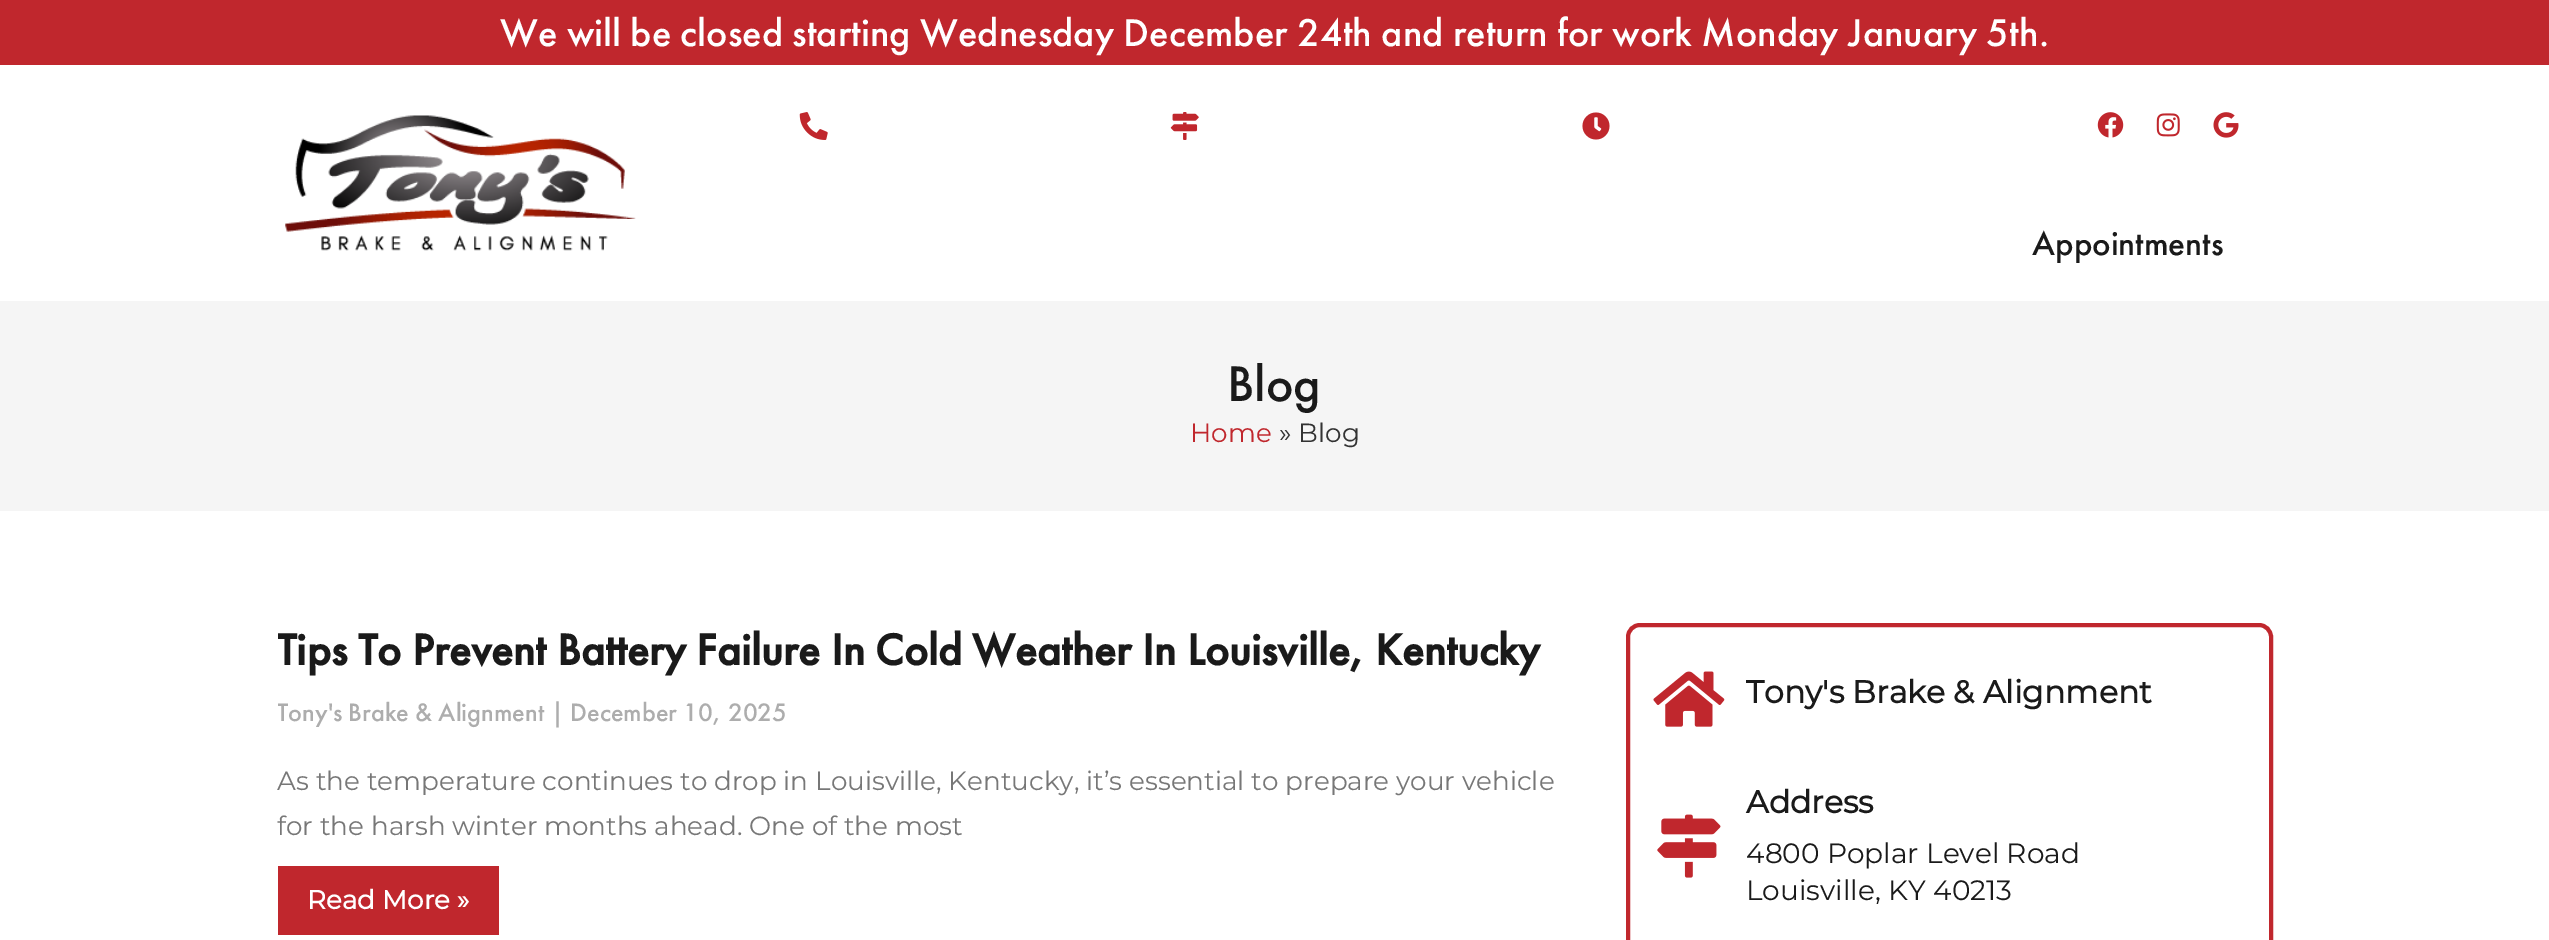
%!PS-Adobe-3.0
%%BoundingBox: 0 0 2549 940
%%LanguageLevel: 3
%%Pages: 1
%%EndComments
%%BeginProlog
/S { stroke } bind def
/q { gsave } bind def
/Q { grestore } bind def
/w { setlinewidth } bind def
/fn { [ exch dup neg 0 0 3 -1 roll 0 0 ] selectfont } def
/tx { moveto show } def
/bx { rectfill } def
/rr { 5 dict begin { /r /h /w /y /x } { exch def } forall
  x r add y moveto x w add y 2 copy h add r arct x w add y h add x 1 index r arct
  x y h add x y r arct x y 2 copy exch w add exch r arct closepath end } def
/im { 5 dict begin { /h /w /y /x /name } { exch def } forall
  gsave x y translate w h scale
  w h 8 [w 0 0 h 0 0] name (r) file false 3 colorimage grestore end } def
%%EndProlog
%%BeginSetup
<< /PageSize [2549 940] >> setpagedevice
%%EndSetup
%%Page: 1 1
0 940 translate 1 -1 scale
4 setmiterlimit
1 setgray
0 0 2549 940 bx
0.753 0.153 0.176 setrgbcolor
0 0 2549 65 bx
/FuturaPT-Medium 40.25 fn
1 setgray
(We will be closed starting Wednesday December 24th and return for work Monday January 5th.) 500 46 tx
(image0.raw) 285 115 351 136 im
(image1.raw) 799 112 29 28 im
(image2.raw) 1170 112 29 28 im
(image3.raw) 1582 112 28 28 im
(image4.raw) 2097 112 27 26 im
(image5.raw) 2156 113 24 24 im
(image6.raw) 2213 112 26 26 im
/FuturaPT-Medium 35 fn
0.102 setgray
(Appointments) 2032 255 tx
0.961 setgray
0 301 2549 210 bx
/FuturaPT-Medium 52 fn
0.102 setgray
(Blog) 1227 401 tx
/Montserrat-Regular 26.25 fn
0.753 0.153 0.176 setrgbcolor
(Home) 1190 442 tx
0.2 setgray
(» Blog) 1279 442 tx
q
278 623 1295 312 rectclip
/FuturaPT-Bold 45.5 fn
0.102 setgray
(Tips To Prevent Battery Failure In Cold Weather In Louisville, Kentucky) 277 665 tx
/FuturaPT-Medium 26.25 fn
0.678 setgray
(Tony's Brake & Alignment) 277 721 tx
Q
/FuturaPT-Medium 26.25 fn
0.678 setgray
(| December 10, 2025) 551 721 tx
/Montserrat-Regular 26.25 fn
0.467 setgray
(As the temperature continues to drop in Louisville, Kentucky, it’s essential to prepare your vehicle) 277 790 tx
(for the harsh winter months ahead. One of the most) 277 835 tx
0.753 0.153 0.176 setrgbcolor
278 866 221 69 bx
/Montserrat-Bold 26.25 fn
1 setgray
(Read More ») 307 909 tx
0.753 0.153 0.176 setrgbcolor
4 w
1628 625 643 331 12 rr S
(image7.raw) 1653 671 72 56 im
/Montserrat-Bold 31.5 fn
0.102 setgray
(Tony's Brake & Alignment) 1746 703 tx
(image8.raw) 1657 814 64 64 im
(Address) 1746 813 tx
/Montserrat-Regular 28 fn
(4800 Poplar Level Road) 1746 863 tx
(Louisville, KY 40213) 1746 900 tx
showpage
%%EOF
